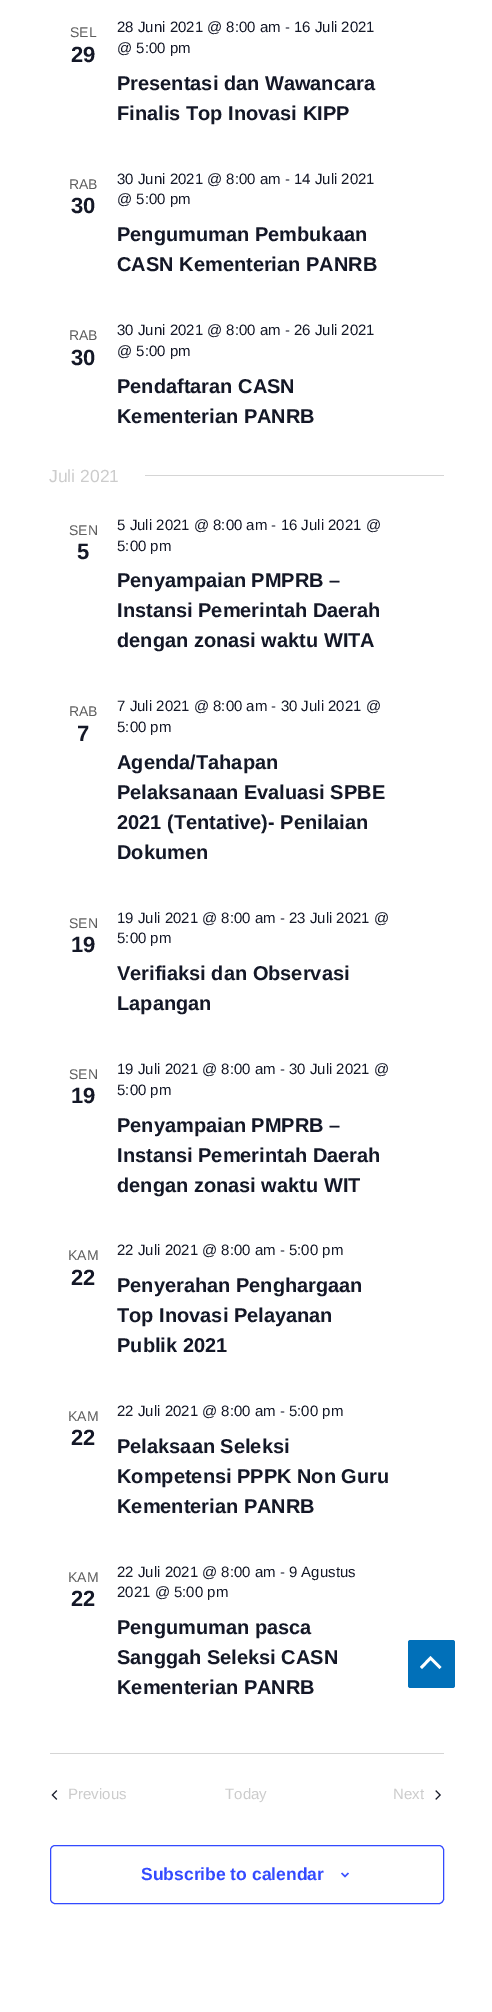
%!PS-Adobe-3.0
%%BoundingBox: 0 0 492 2012
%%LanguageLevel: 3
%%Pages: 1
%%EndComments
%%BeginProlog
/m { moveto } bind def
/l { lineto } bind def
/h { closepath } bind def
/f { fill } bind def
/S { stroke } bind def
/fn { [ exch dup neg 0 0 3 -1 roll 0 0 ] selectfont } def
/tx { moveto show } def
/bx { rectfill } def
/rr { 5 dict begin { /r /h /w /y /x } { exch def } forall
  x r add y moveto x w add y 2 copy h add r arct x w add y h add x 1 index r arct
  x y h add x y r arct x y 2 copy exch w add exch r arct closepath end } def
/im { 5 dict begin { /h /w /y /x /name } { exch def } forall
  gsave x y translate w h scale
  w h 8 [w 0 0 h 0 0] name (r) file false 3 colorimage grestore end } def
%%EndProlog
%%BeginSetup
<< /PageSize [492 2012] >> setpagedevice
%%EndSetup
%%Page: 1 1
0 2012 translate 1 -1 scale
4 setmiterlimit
1 setgray
0 0 492 2012 bx
/LiberationSans-Regular 14 fn
0.365 setgray
(SEL) 70 37 tx
/LiberationSans-Bold 22 fn
0.078 0.094 0.153 setrgbcolor
(29) 71 62 tx
/LiberationSans-Regular 15 fn
(28 Juni 2021 @ 8:00 am - 16 Juli 2021) 117 32 tx
(@ 5:00 pm) 117 53 tx
/LiberationSans-Bold 20 fn
(Presentasi dan Wawancara) 117 90 tx
(Finalis Top Inovasi KIPP) 117 120 tx
/LiberationSans-Regular 14 fn
0.365 setgray
(RAB) 69 189 tx
/LiberationSans-Bold 22 fn
0.078 0.094 0.153 setrgbcolor
(30) 71 213 tx
/LiberationSans-Regular 15 fn
(30 Juni 2021 @ 8:00 am - 14 Juli 2021) 117 184 tx
(@ 5:00 pm) 117 204 tx
/LiberationSans-Bold 20 fn
(Pengumuman Pembukaan) 117 241 tx
(CASN Kementerian PANRB) 117 271 tx
/LiberationSans-Regular 14 fn
0.365 setgray
(RAB) 69 340 tx
/LiberationSans-Bold 22 fn
0.078 0.094 0.153 setrgbcolor
(30) 71 365 tx
/LiberationSans-Regular 15 fn
(30 Juni 2021 @ 8:00 am - 26 Juli 2021) 117 335 tx
(@ 5:00 pm) 117 356 tx
/LiberationSans-Bold 20 fn
(Pendaftaran CASN) 117 393 tx
(Kementerian PANRB) 117 423 tx
/LiberationSans-Regular 17.5 fn
0.8 setgray
(Juli 2021) 49 482 tx
0.835 setgray
145 475 299 1 bx
/LiberationSans-Regular 14 fn
0.365 setgray
(SEN) 69 535 tx
/LiberationSans-Bold 22 fn
0.078 0.094 0.153 setrgbcolor
(5) 77 559 tx
/LiberationSans-Regular 15 fn
(5 Juli 2021 @ 8:00 am - 16 Juli 2021 @) 117 530 tx
(5:00 pm) 117 551 tx
/LiberationSans-Bold 20 fn
(Penyampaian PMPRB –) 117 587 tx
(Instansi Pemerintah Daerah) 117 617 tx
(dengan zonasi waktu WITA) 117 647 tx
/LiberationSans-Regular 14 fn
0.365 setgray
(RAB) 69 716 tx
/LiberationSans-Bold 22 fn
0.078 0.094 0.153 setrgbcolor
(7) 77 741 tx
/LiberationSans-Regular 15 fn
(7 Juli 2021 @ 8:00 am - 30 Juli 2021 @) 117 711 tx
(5:00 pm) 117 732 tx
/LiberationSans-Bold 20 fn
(Agenda/Tahapan) 117 769 tx
(Pelaksanaan Evaluasi SPBE) 117 799 tx
(2021 \(Tentative\)- Penilaian) 117 829 tx
(Dokumen) 117 859 tx
/LiberationSans-Regular 14 fn
0.365 setgray
(SEN) 69 928 tx
/LiberationSans-Bold 22 fn
0.078 0.094 0.153 setrgbcolor
(19) 71 952 tx
/LiberationSans-Regular 15 fn
(19 Juli 2021 @ 8:00 am - 23 Juli 2021 @) 117 923 tx
(5:00 pm) 117 943 tx
/LiberationSans-Bold 20 fn
(Verifiaksi dan Observasi) 117 980 tx
(Lapangan) 117 1010 tx
/LiberationSans-Regular 14 fn
0.365 setgray
(SEN) 69 1079 tx
/LiberationSans-Bold 22 fn
0.078 0.094 0.153 setrgbcolor
(19) 71 1103 tx
/LiberationSans-Regular 15 fn
(19 Juli 2021 @ 8:00 am - 30 Juli 2021 @) 117 1074 tx
(5:00 pm) 117 1095 tx
/LiberationSans-Bold 20 fn
(Penyampaian PMPRB –) 117 1132 tx
(Instansi Pemerintah Daerah) 117 1162 tx
(dengan zonasi waktu WIT) 117 1192 tx
/LiberationSans-Regular 14 fn
0.365 setgray
(KAM) 68 1260 tx
/LiberationSans-Bold 22 fn
0.078 0.094 0.153 setrgbcolor
(22) 71 1285 tx
/LiberationSans-Regular 15 fn
(22 Juli 2021 @ 8:00 am - 5:00 pm) 117 1255 tx
/LiberationSans-Bold 20 fn
(Penyerahan Penghargaan) 117 1292 tx
(Top Inovasi Pelayanan) 117 1322 tx
(Publik 2021) 117 1352 tx
/LiberationSans-Regular 14 fn
0.365 setgray
(KAM) 68 1421 tx
/LiberationSans-Bold 22 fn
0.078 0.094 0.153 setrgbcolor
(22) 71 1445 tx
/LiberationSans-Regular 15 fn
(22 Juli 2021 @ 8:00 am - 5:00 pm) 117 1416 tx
/LiberationSans-Bold 20 fn
(Pelaksaan Seleksi) 117 1453 tx
(Kompetensi PPPK Non Guru) 117 1483 tx
(Kementerian PANRB) 117 1513 tx
/LiberationSans-Regular 14 fn
0.365 setgray
(KAM) 68 1582 tx
/LiberationSans-Bold 22 fn
0.078 0.094 0.153 setrgbcolor
(22) 71 1606 tx
/LiberationSans-Regular 15 fn
(22 Juli 2021 @ 8:00 am - 9 Agustus) 117 1577 tx
(2021 @ 5:00 pm) 117 1597 tx
/LiberationSans-Bold 20 fn
(Pengumuman pasca) 117 1634 tx
(Sanggah Seleksi CASN) 117 1664 tx
(Kementerian PANRB) 117 1694 tx
0.835 setgray
50 1753 394 1 bx
(image0.raw) 51 1790 7 10 im
/LiberationSans-Regular 15 fn
0.8 setgray
(Previous) 68 1799 tx
(Today) 225 1799 tx
(Next) 393 1799 tx
(image1.raw) 435 1790 6 10 im
0.2 0.29 1 setrgbcolor
50.5 1845.5 393 58 4.5 rr S
/LiberationSans-Bold 17.5 fn
(Subscribe to calendar) 141 1880 tx
(image2.raw) 341 1872 8 6 im
0.004 0.439 0.725 setrgbcolor
408 1640 47 48 2.5 rr f
1 setgray
441.5 1667 m 430.5 1656 l 420 1667 l 422 1669 l 430.5 1660 l 439.5 1669 l h f
showpage
%%EOF
